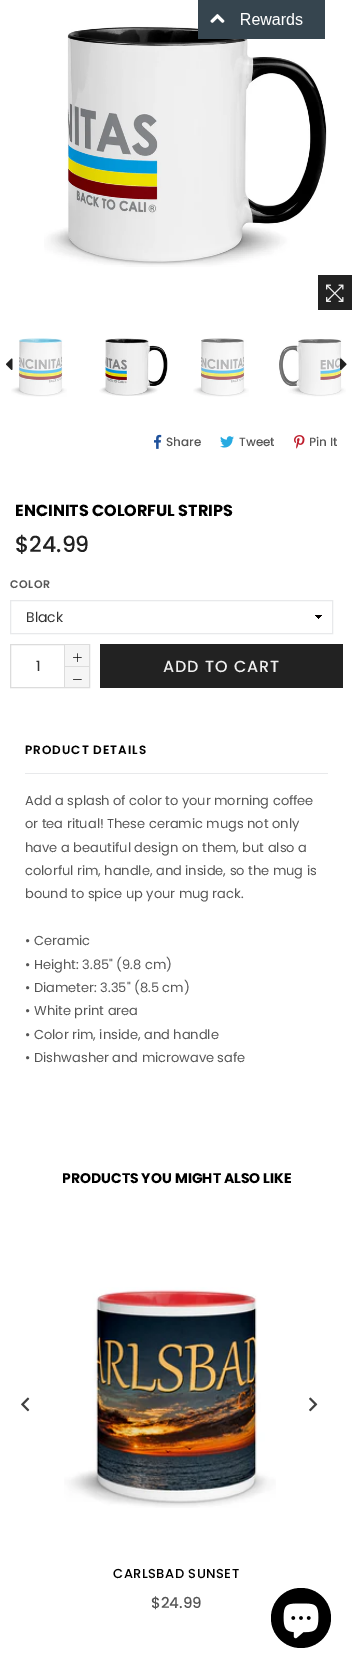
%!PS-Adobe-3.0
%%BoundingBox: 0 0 353 1669
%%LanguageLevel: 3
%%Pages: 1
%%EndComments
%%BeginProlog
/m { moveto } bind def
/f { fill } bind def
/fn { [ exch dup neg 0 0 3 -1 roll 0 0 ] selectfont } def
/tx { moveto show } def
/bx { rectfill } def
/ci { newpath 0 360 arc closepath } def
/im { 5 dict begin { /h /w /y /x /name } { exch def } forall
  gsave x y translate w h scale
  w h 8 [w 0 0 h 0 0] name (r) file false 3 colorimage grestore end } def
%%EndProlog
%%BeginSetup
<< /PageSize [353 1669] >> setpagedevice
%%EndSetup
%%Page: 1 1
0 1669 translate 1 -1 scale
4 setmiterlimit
1 setgray
0 0 353 1669 bx
(image1.raw) 44 26 283 241 im
(image0.raw) 198 0 127 39 im
0.133 setgray
318 275 34 35 bx
(image2.raw) 326 284 18 18 im
(image4.raw) 11 338 56 59 im
(image3.raw) 6 358 7 12 im
(image5.raw) 99 338 69 58 im
(image6.raw) 193 338 56 59 im
(image7.raw) 279 339 67 58 im
(image8.raw) 340 358 7 12 im
(image9.raw) 154 434 8 15 im
/Poppins-Medium 12 fn
0.333 setgray
(Share) 166 446 tx
(image10.raw) 220 436 14 12 im
(Tweet) 239 446 tx
(image11.raw) 294 435 11 14 im
(Pin It) 309 446 tx
/Poppins-Bold 16 fn
0 setgray
(ENCINITS COLORFUL STRIPS) 15 516 tx
/Poppins-Medium 22 fn
0.133 setgray
($24.99) 15 552 tx
/Poppins-SemiBold 11 fn
0.333 setgray
10 588 m 0.5 0 (COLOR) ashow
(image12.raw) 315 615 7 4 im
0.91 0.914 0.922 setrgbcolor
10.5 600.5 322 33 rectstroke
/Poppins-Regular 14 fn
0.2 setgray
(Black) 26 622 tx
0.863 setgray
10.5 644.5 79 43 rectstroke
0.961 setgray
65 667 24 20 bx
0.863 setgray
64 666 25 1 bx
64 645 1 42 bx
(image13.raw) 73 679 9 1 im
0.2 setgray
(1) 36 671 tx
0.961 setgray
65 645 24 21 bx
(image14.raw) 73 653 9 9 im
0.133 setgray
100 644 243 44 bx
/Poppins-Medium 16 fn
0.933 setgray
163 672 m 1 0 (ADD TO CART) ashow
0.91 0.914 0.922 setrgbcolor
25 773 303 1 bx
/Poppins-SemiBold 12 fn
0 setgray
25 754 m 1 0 (PRODUCT DETAILS) ashow
/Poppins-Regular 13 fn
0.333 setgray
(Add a splash of color to your morning coffee) 25 805 tx
(or tea ritual! These ceramic mugs not only) 25 828 tx
(have a beautiful design on them, but also a) 25 852 tx
(colorful rim, handle, and inside, so the mug is) 25 875 tx
(bound to spice up your mug rack.) 25 898 tx
(• Ceramic) 25 945 tx
(• Height: 3.85" \(9.8 cm\)) 25 969 tx
(• Diameter: 3.35" \(8.5 cm\)) 25 992 tx
(• White print area) 25 1015 tx
(• Color rim, inside, and handle) 25 1039 tx
(• Dishwasher and microwave safe) 25 1062 tx
/Poppins-Bold 14 fn
0 setgray
(PRODUCTS YOU MIGHT ALSO LIKE) 62 1183 tx
(image15.raw) 21 1397 9 15 im
(image16.raw) 309 1397 9 15 im
(image17.raw) 64 1287 212 221 im
/Poppins-Medium 13 fn
113 1578 m 0.5 0 (CARLSBAD SUNSET) ashow
/Poppins-Medium 15 fn
0.333 setgray
($24.99) 151 1608 tx
0 setgray
301 1618 30 ci f
(image18.raw) 283 1603 36 36 im
showpage
%%EOF
